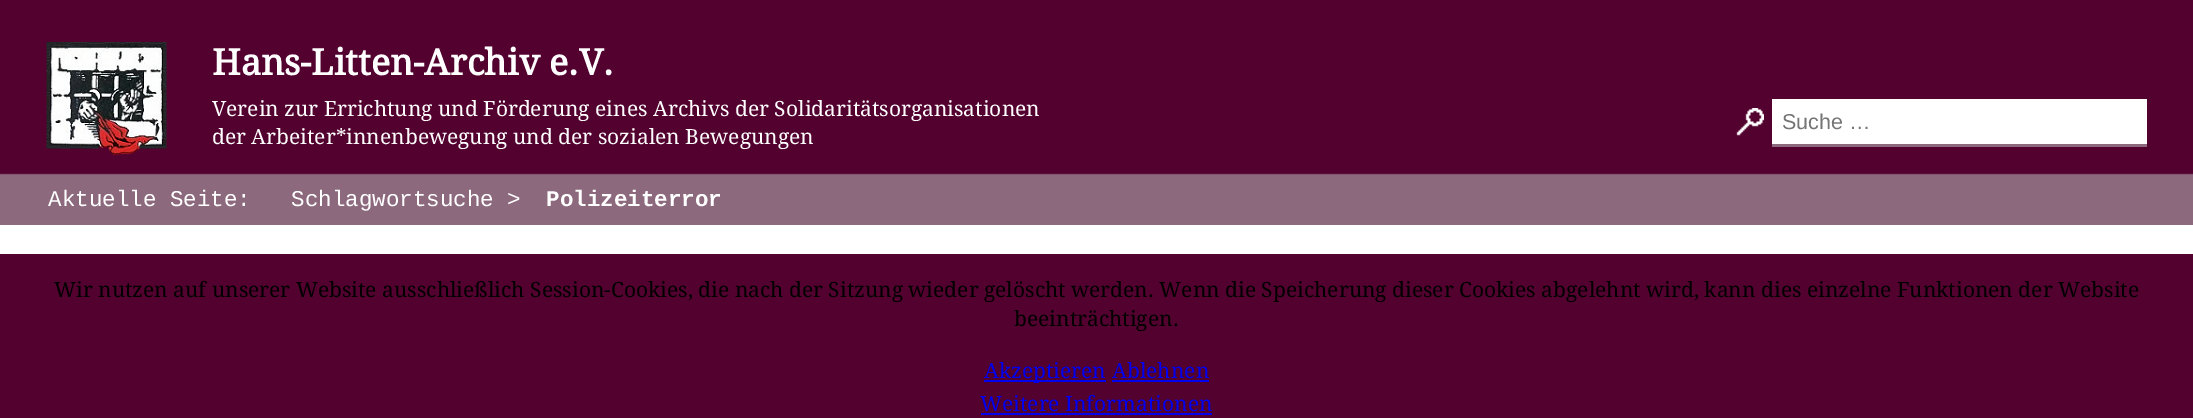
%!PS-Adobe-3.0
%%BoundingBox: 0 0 2193 418
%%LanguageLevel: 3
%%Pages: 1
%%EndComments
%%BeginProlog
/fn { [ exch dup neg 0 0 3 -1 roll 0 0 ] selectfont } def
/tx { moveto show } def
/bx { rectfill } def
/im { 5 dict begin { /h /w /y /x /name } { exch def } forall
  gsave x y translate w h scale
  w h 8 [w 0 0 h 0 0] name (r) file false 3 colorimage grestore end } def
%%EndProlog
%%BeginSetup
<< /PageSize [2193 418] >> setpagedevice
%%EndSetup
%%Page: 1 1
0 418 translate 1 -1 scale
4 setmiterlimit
1 setgray
0 0 2193 418 bx
(image0.raw) 0 0 2193 225 im
(image1.raw) 46 42 121 114 im
/DroidSerif-Bold 36 fn
(Hans-Litten-Archiv e.V.) 212 75 tx
/DroidSerif-Regular 21 fn
(Verein zur Errichtung und Förderung eines Archivs der Solidaritätsorganisationen) 212 116 tx
(der Arbeiter*innenbewegung und der sozialen Bewegungen) 212 144 tx
(image2.raw) 1736 108 28 28 im
1772 99 375 45 bx
0.553 0.412 0.49 setrgbcolor
1772 144 375 3 bx
/LiberationSans-Regular 21.5 fn
0.459 setgray
(Suche …) 1782 129 tx
/LiberationMono-Regular 22.5 fn
1 setgray
(Aktuelle Seite:) 48 206 tx
(Schlagwortsuche >) 291 206 tx
/LiberationMono-Bold 22.5 fn
(Polizeiterror) 546 206 tx
0.325 0.008 0.188 setrgbcolor
0 254 2193 164 bx
/DroidSerif-Regular 21 fn
0 setgray
(Wir nutzen auf unserer Website ausschließlich Session-Cookies, die nach der Sitzung wieder gelöscht werden. Wenn die Speicherung dieser Cookies abgelehnt wird, kann dies einzelne Funktionen der Website) 54 297 tx
(beeinträchtigen.) 1014 326 tx
0 0 0.933 setrgbcolor
984 380 122 2 bx
(Akzeptieren) 984 378 tx
(Ablehnen) 1112 378 tx
1112 380 97 2 bx
(Weitere Informationen) 980 411 tx
981 413 231 2 bx
showpage
%%EOF
